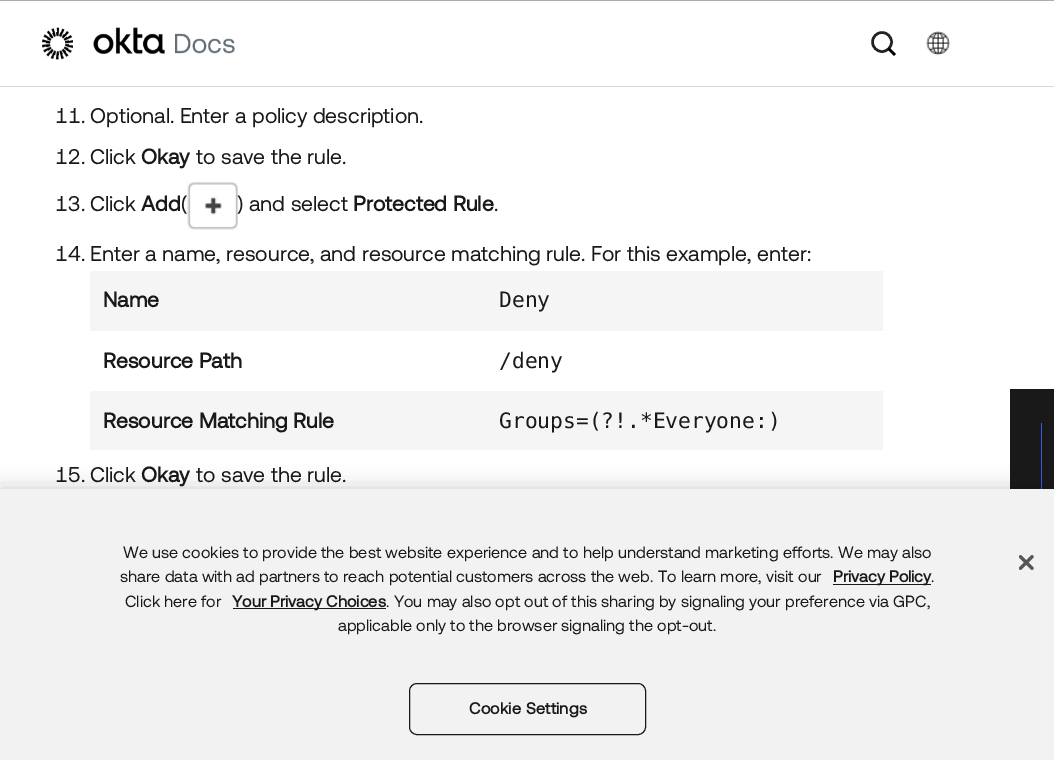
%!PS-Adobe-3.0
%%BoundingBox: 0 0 1054 760
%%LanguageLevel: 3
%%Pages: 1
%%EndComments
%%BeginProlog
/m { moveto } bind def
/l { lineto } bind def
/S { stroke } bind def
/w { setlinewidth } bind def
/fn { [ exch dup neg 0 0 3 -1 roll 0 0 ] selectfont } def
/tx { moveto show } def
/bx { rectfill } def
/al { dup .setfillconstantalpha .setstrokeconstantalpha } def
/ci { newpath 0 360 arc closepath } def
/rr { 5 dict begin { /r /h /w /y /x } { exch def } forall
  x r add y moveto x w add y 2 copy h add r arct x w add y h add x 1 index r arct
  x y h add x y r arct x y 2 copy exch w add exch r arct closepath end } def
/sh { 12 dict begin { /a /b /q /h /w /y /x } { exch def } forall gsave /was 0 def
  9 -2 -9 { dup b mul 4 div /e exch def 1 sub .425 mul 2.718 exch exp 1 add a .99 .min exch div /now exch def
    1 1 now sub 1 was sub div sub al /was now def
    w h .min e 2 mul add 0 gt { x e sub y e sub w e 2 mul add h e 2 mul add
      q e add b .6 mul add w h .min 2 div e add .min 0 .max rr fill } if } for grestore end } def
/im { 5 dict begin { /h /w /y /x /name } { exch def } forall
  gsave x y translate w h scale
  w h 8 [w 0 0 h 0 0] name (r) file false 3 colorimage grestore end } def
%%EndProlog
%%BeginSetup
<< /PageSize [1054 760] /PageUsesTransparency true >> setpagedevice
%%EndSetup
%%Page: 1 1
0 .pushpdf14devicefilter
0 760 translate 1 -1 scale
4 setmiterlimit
1 setgray
0 0 1054 760 bx
0.843 0.843 0.863 setrgbcolor
0 86 1054 1 bx
(image0.raw) 42 27 193 33 im
0.129 0.129 0.149 setrgbcolor
2.5 w
882 42 9.5 ci S
0 setgray
895 55 m 888.5 48.5 l S
0.686 0.671 0.631 setrgbcolor
0 0 1054 1 bx
(image1.raw) 926 31 25 25 im
/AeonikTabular-Regular 21.25 fn
0.098 setgray
(11.) 55 123 tx
/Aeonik-Regular 21.25 fn
(Optional. Enter a policy description.) 90 123 tx
/AeonikTabular-Regular 21.25 fn
(12.) 55 164 tx
/Aeonik-Regular 21.25 fn
(Click) 90 164 tx
/Aeonik-Bold 21.25 fn
(Okay) 141 164 tx
/Aeonik-Regular 21.25 fn
(to save the rule.) 196 164 tx
/AeonikTabular-Regular 21.25 fn
(13.) 55 211 tx
/Aeonik-Regular 21.25 fn
(Click) 90 211 tx
/Aeonik-Bold 21.25 fn
(Add) 141 211 tx
/Aeonik-Regular 21.25 fn
(\() 181 211 tx
(image2.raw) 187 182 51 48 im
(\) and select) 237 211 tx
/Aeonik-Bold 21.25 fn
(Protected Rule) 353 211 tx
/Aeonik-Regular 21.25 fn
(.) 494 211 tx
/AeonikTabular-Regular 21.25 fn
(14.) 55 261 tx
/Aeonik-Regular 21.25 fn
(Enter a name, resource, and resource matching rule. For this example, enter:) 90 261 tx
0.961 0.961 0.965 setrgbcolor
90 271 396 60 bx
/Aeonik-Bold 21.25 fn
0.098 setgray
(Name) 103 307 tx
0.961 0.961 0.965 setrgbcolor
486 271 397 59 bx
486 330 398 1 bx
/DejaVuSansMono-Regular 21.25 fn
0.098 setgray
(Deny) 499 307 tx
/Aeonik-Bold 21.25 fn
(Resource Path) 103 368 tx
/DejaVuSansMono-Regular 21.25 fn
(/deny) 499 368 tx
0.961 0.961 0.965 setrgbcolor
90 391 793 59 bx
/Aeonik-Bold 21.25 fn
0.098 setgray
(Resource Matching Rule) 103 428 tx
/DejaVuSansMono-Regular 21.25 fn
(Groups=\(?!.*Everyone:\)) 499 428 tx
/AeonikTabular-Regular 21.25 fn
(15.) 55 482 tx
/Aeonik-Regular 21.25 fn
(Click) 90 482 tx
/Aeonik-Bold 21.25 fn
(Okay) 141 482 tx
/Aeonik-Regular 21.25 fn
(to save the rule.) 196 482 tx
1010 389 44 100 bx
0.247 0.349 0.894 setrgbcolor
1041 423 1 66 bx
0 setgray
0 489 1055 271 0 11 0.2 sh
0.949 setgray
0 489 1054 271 bx
/Aeonik-Regular 16.25 fn
0.098 setgray
(We use cookies to provide the best website experience and to help understand marketing efforts. We may also) 123 558 tx
(share data with ad partners to reach potential customers across the web. To learn more, visit our) 120 582 tx
833 584 98 1 bx
/Aeonik-Bold 16.25 fn
(Privacy Policy) 833 582 tx
/Aeonik-Regular 16.25 fn
(.) 931 582 tx
(Click here for) 125 607 tx
233 608 153 1 bx
/Aeonik-Bold 16.25 fn
(Your Privacy Choices) 232 607 tx
/Aeonik-Regular 16.25 fn
(. You may also opt out of this sharing by signaling your preference via GPC,) 386 607 tx
(applicable only to the browser signaling the opt-out.) 338 631 tx
1 w
409.5 683.5 236 51 7.5 rr S
/Aeonik-Bold 16.25 fn
469 714 m 0.2 0 (Cookie Settings) ashow
(image3.raw) 1019 555 15 15 im
.poppdf14devicefilter showpage
%%EOF
